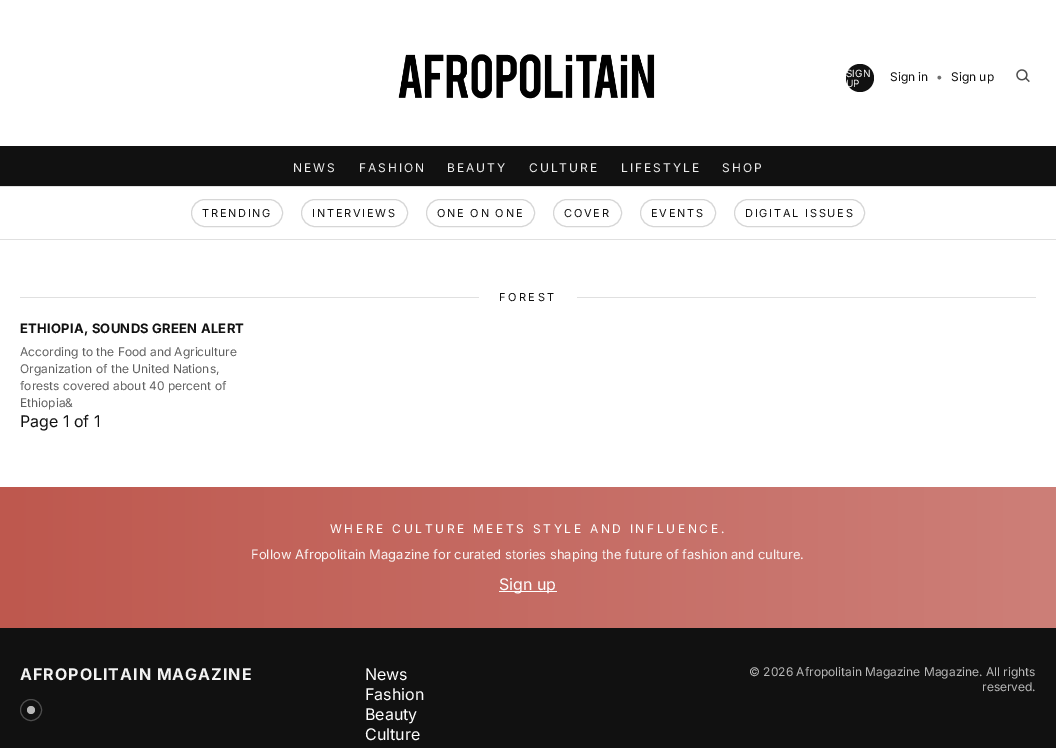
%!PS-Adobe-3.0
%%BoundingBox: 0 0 1056 748
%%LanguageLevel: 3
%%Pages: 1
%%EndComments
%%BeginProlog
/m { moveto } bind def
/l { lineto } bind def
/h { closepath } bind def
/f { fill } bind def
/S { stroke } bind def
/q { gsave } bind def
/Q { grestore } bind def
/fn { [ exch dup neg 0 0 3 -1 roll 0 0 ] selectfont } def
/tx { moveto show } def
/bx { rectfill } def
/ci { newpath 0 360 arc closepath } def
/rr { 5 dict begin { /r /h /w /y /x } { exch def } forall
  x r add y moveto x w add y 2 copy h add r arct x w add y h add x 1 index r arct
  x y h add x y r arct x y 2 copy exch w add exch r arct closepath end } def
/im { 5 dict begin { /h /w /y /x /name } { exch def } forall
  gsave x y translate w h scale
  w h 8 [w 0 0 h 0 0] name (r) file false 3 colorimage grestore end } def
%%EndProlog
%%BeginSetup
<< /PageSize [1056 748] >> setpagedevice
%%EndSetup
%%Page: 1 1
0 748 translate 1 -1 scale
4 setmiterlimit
1 setgray
0 0 1056 748 bx
0.878 setgray
0 239 1056 1 bx
(image0.raw) 398 54 257 45 im
0.067 setgray
860 78 14 ci f
/Inter-Regular 10 fn
1 setgray
(SIGN) 846 77 tx
(UP) 846 87 tx
/Inter-Regular 12 fn
0.067 setgray
(Sign in) 890 81 tx
0.439 setgray
(•) 936 81 tx
0.067 setgray
(Sign up) 951 81 tx
(image1.raw) 1016 69 14 14 im
0 146 1056 40 bx
0.925 setgray
293 172 m 2 0 (NEWS) ashow
359 172 m 2 0 (FASHION) ashow
447 172 m 2 0 (BEAUTY) ashow
529 172 m 2 0 (CULTURE) ashow
621 172 m 2 0 (LIFESTYLE) ashow
722 172 m 2 0 (SHOP) ashow
0.878 setgray
0 186 1056 1 bx
0.839 setgray
191.5 199.5 91 27 13.5 rr S
/Inter-Regular 11 fn
0.067 setgray
202 217 m 1.75 0 (TRENDING) ashow
0.839 setgray
301.5 199.5 106 27 13.5 rr S
0.067 setgray
312 217 m 1.75 0 (INTERVIEWS) ashow
0.839 setgray
426.5 199.5 108 27 13.5 rr S
0.067 setgray
437 217 m 1.75 0 (ONE ON ONE) ashow
0.839 setgray
553.5 199.5 68 27 13.5 rr S
0.067 setgray
564 217 m 1.75 0 (COVER) ashow
0.839 setgray
640.5 199.5 75 27 13.5 rr S
0.067 setgray
651 217 m 1.75 0 (EVENTS) ashow
0.839 setgray
734.5 199.5 130 27 13.5 rr S
0.067 setgray
745 217 m 1.75 0 (DIGITAL ISSUES) ashow
0.878 setgray
20 297 459 1 bx
0.067 setgray
499 301 m 2.5 0 (FOREST) ashow
0.878 setgray
577 297 459 1 bx
/Inter-Bold 13 fn
0.067 setgray
20 333 m 0.25 0 (ETHIOPIA, SOUNDS GREEN ALERT) ashow
/Inter-Regular 12 fn
0.38 setgray
(According to the Food and Agriculture) 20 356 tx
(Organization of the United Nations,) 20 373 tx
(forests covered about 40 percent of) 20 390 tx
(Ethiopia&) 20 407 tx
/Inter-Regular 16 fn
0.067 setgray
(Page 1 of 1) 20 427 tx
q 0 487 m 1056 487 l 1056 628 l 0 628 l h clip newpath
<< /ShadingType 2 /ColorSpace /DeviceRGB /Coords [0 558 1056 558] /Extend [true true] /Function << /FunctionType 2 /Domain [0 1] /C0 [0.745 0.345 0.306] /C1 [0.804 0.498 0.471] /N 1 >> >> shfill Q
/Inter-Regular 12 fn
1 setgray
330 533 m 2.65 0 (WHERE CULTURE MEETS STYLE AND INFLUENCE.) ashow
/Inter-Regular 13 fn
0.98 0.953 0.949 setrgbcolor
(Follow Afropolitain Magazine for curated stories shaping the future of fashion and culture.) 251 559 tx
1 setgray
499 591 58 1 bx
/Inter-Regular 16 fn
(Sign up) 499 590 tx
0.067 setgray
0 628 1056 120 bx
/Inter-Bold 16 fn
0.953 setgray
20 680 m 1 0 (AFROPOLITAIN MAGAZINE) ashow
0.302 setgray
31 710 10.5 ci S
0.722 setgray
31 710 4 ci f
/Inter-Regular 16 fn
1 setgray
(News) 365 680 tx
(Fashion) 365 700 tx
(Beauty) 365 720 tx
(Culture) 365 740 tx
/Inter-Regular 12 fn
0.722 setgray
(© 2026 Afropolitain Magazine Magazine. All rights) 749 676 tx
(reserved.) 982 691 tx
showpage
%%EOF
